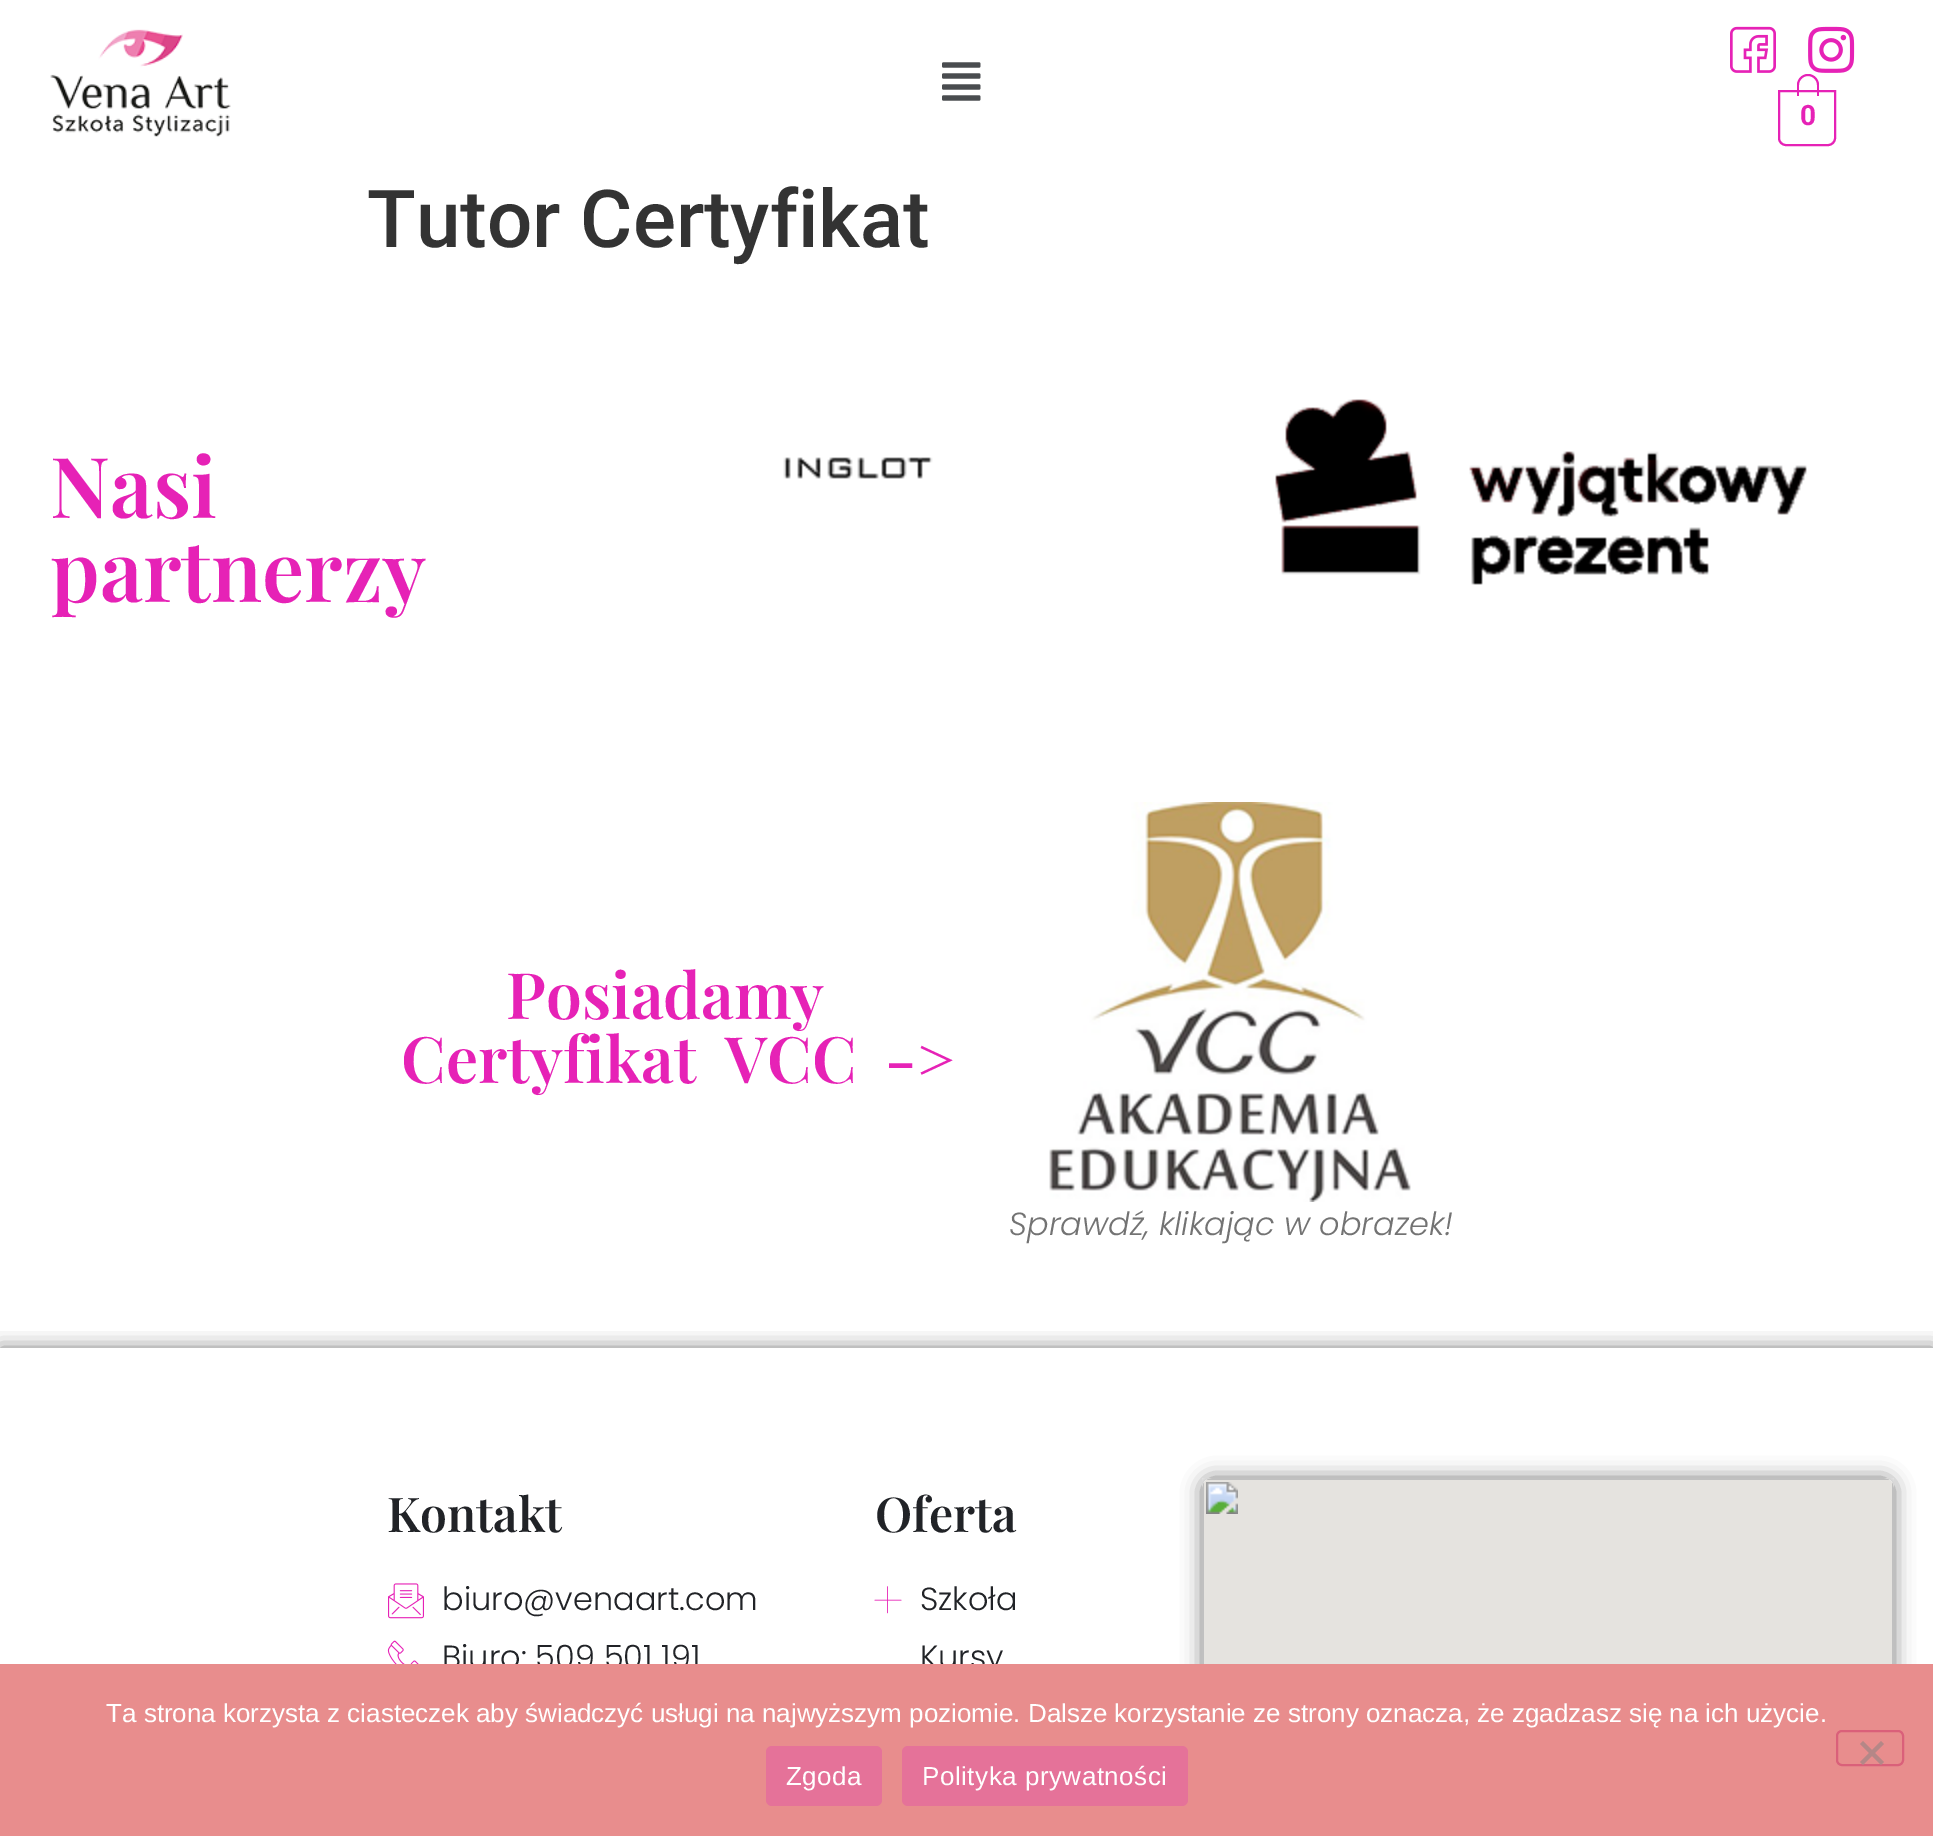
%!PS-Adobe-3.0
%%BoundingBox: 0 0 1933 1836
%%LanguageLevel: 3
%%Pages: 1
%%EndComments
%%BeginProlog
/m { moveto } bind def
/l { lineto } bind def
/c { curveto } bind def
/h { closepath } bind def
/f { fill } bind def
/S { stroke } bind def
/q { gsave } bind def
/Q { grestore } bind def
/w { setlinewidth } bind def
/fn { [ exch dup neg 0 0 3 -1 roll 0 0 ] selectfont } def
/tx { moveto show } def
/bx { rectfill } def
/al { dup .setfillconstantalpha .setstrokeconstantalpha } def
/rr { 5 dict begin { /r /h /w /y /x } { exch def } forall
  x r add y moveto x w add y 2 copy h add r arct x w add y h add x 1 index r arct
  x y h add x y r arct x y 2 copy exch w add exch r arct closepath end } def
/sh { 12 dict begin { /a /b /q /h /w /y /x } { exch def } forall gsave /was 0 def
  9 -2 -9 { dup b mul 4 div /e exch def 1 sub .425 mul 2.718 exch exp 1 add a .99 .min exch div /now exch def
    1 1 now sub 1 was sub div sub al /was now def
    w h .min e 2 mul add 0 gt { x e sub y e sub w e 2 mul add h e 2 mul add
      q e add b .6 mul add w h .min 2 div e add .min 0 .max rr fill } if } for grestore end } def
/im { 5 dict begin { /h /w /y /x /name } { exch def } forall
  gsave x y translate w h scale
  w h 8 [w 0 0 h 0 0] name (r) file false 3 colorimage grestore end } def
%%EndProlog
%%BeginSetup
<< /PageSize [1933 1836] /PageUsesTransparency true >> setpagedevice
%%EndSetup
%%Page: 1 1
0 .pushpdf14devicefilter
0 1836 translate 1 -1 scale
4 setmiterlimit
1 setgray
0 0 1933 1836 bx
(image0.raw) 50 29 181 108 im
(image1.raw) 942 62 39 39 im
(image2.raw) 1730 26 46 47 im
(image3.raw) 1808 26 47 47 im
0.902 0.133 0.714 setrgbcolor
2 w
1779 91 m 1835 91 l 1835 138 l 1835 142 1832 145 1828 145 c 1786 145 l 1782 145 1779 142 1779 138 c h S
1808 74 m 1814 74 1819 79 1819 85 c 1819 96 l 1797 96 l 1797 85 l 1797 79 1802 74 1808 74 c h 1808 76 m 1813 76 1817 80 1817 85 c 1817 96 l 1799 96 l 1799 85 l 1799 80 1803 76 1808 76 c h eofill
/Roboto-Bold 28 fn
(0) 1800 125 tx
/Roboto-Medium 80 fn
0.2 setgray
(Tutor Certyfikat) 367 247 tx
/PlayfairDisplay-SemiBold 84 fn
0.902 0.133 0.714 setrgbcolor
(Nasi) 50 518 tx
(partnerzy) 50 602 tx
(image4.raw) 783 457 150 22 im
(image5.raw) 1275 399 532 186 im
/PlayfairDisplay-SemiBold 64 fn
(Posiadamy) 506 1019 tx
401 1083 m 13 0 32 (Certyfikat VCC ->) widthshow
(image6.raw) 1049 802 362 400 im
/Poppins-LightItalic 32 fn
0.451 setgray
(Sprawdź, klikając w obrazek!) 1009 1235 tx
q
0 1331 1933 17 rectclip
0 setgray
0 1348 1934 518 0 10 0.5 sh
Q
/PlayfairDisplay-SemiBold 48 fn
0.129 0.137 0.153 setrgbcolor
(Kontakt) 387 1532 tx
(image7.raw) 388 1583 36 36 im
/Poppins-Light 32 fn
(biuro@venaart.com) 442 1610 tx
(image8.raw) 387 1640 32 24 im
(Biuro: 509 501 191) 442 1668 tx
/PlayfairDisplay-SemiBold 48 fn
(Oferta) 875 1532 tx
(image9.raw) 874 1586 28 28 im
/Poppins-Light 32 fn
(Szkoła) 920 1610 tx
(Kursy) 920 1668 tx
0 setgray
1202 1478 692 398 10 10 0.5 sh
(image10.raw) 1202 1478 692 186 im
0.91 0.553 0.553 setrgbcolor
0 1664 1933 172 bx
/LiberationSans-Regular 26 fn
1 setgray
(Ta strona korzysta z ciasteczek aby świadczyć usługi na najwyższym poziomie. Dalsze korzystanie ze strony oznacza, że zgadzasz się na ich użycie.) 106 1722 tx
0.855 0.376 0.478 setrgbcolor
1837 1731 66 34 5 rr S
0.706 0.529 0.529 setrgbcolor
1881 1741 m 1884 1744 l 1863 1765 l 1860 1762 l h f
1860 1744 m 1863 1741 l 1884 1762 l 1881 1765 l h f
0.898 0.447 0.6 setrgbcolor
766 1746 116 60 6 rr f
1 setgray
786 1785 m 0.5 0 (Zgoda) ashow
0.898 0.447 0.6 setrgbcolor
902 1746 286 60 6 rr f
1 setgray
922 1785 m 0.5 0 (Polityka prywatności) ashow
.poppdf14devicefilter showpage
%%EOF
